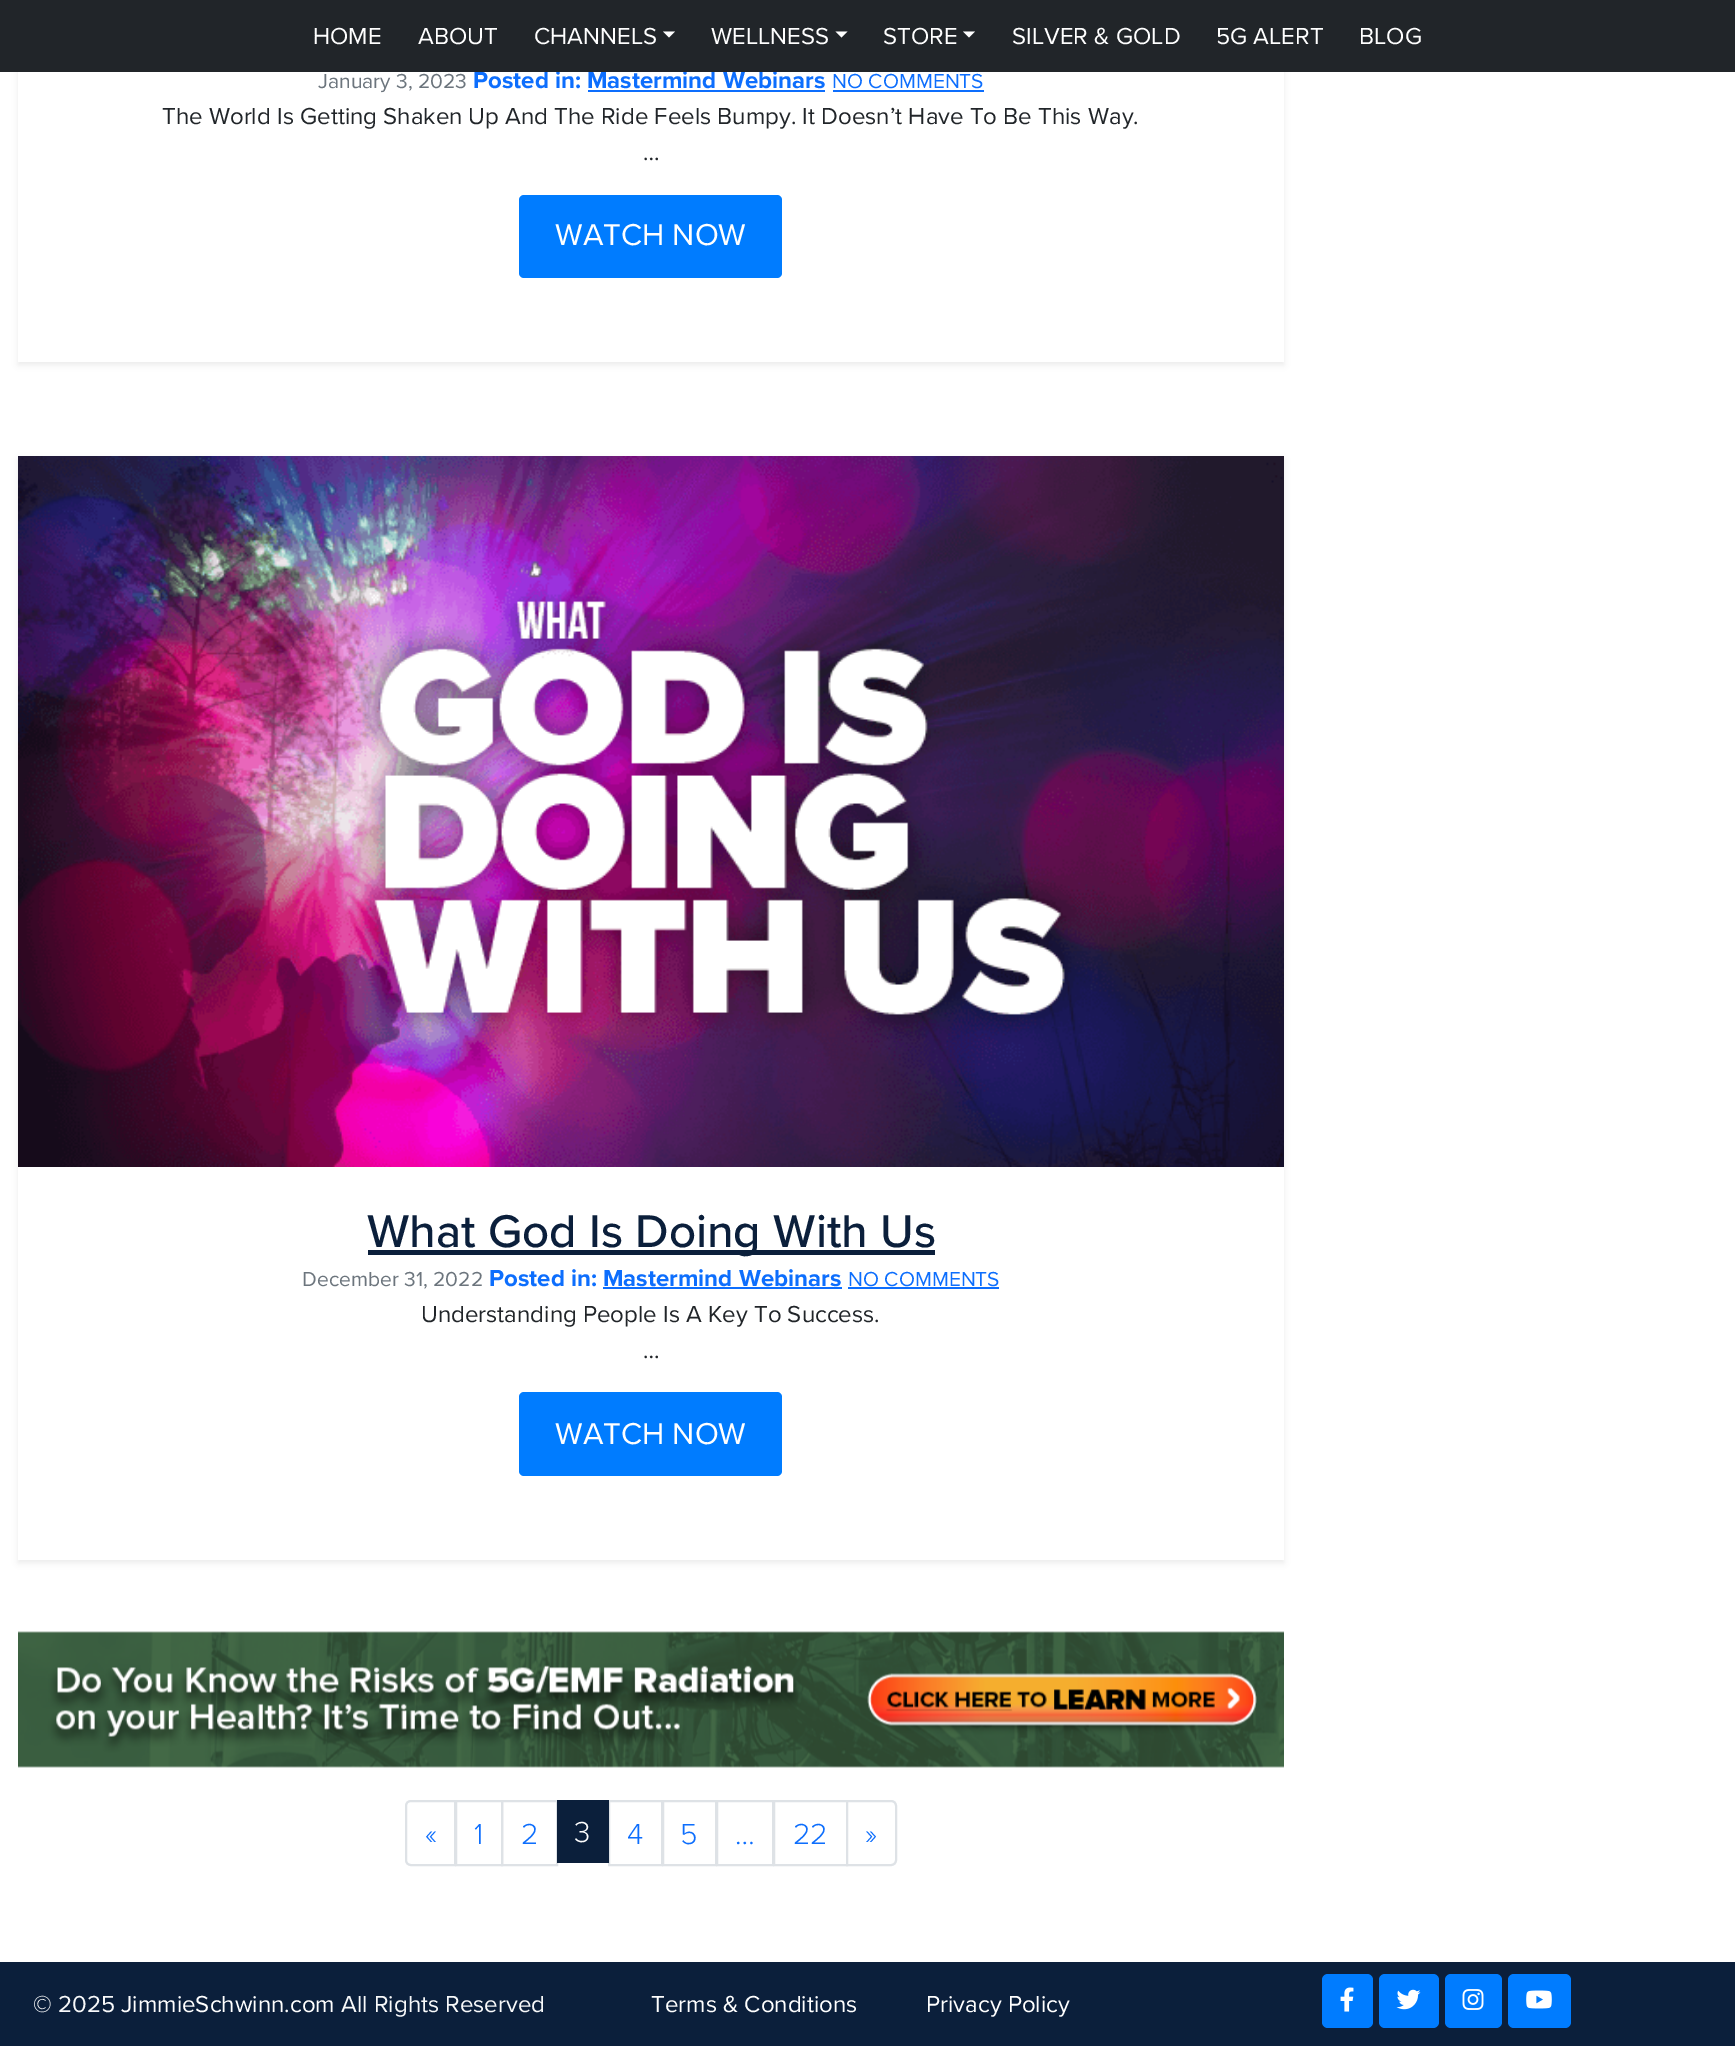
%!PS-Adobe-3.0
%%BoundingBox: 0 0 1735 2046
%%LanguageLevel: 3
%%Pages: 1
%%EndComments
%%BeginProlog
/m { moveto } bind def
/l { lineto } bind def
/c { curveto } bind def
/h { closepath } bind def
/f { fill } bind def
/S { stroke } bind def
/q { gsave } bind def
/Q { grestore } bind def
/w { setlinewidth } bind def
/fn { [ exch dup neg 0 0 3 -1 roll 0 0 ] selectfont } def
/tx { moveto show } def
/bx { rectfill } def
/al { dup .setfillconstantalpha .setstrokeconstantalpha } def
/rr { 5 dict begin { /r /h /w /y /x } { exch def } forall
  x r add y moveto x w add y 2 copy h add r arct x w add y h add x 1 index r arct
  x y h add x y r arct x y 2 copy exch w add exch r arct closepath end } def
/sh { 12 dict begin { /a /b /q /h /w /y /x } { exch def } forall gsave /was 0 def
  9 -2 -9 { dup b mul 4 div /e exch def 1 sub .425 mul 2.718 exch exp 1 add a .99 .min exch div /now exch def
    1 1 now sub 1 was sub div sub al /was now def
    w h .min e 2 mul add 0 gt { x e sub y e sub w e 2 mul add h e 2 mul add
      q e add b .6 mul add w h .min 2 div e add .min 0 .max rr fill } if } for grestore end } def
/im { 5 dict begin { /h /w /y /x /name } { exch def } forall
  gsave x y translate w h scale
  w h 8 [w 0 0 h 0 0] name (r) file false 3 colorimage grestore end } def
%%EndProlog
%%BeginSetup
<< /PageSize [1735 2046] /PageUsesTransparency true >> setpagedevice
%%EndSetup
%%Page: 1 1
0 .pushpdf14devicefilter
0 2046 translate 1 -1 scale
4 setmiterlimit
1 setgray
0 0 1735 2046 bx
q
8 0 m 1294 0 l 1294 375 l 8 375 l h 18 -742 m 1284 -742 l 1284 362 l 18 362 l h eoclip newpath
0 setgray
18 -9 1266 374 0 3 0.07 sh
Q
/ProximaNova-Bold 24 fn
0.051 0.431 0.992 setrgbcolor
(Posted in: Mastermind Webinars) 473 88 tx
0.129 0.145 0.161 setrgbcolor
0 0 1735 72 bx
/ProximaNova-Regular 24 fn
1 setgray
(HOME) 313 44 tx
(ABOUT) 418 44 tx
(CHANNELS) 534 44 tx
663 31.5 m 675 31.5 l 669 37.5 l h f
(WELLNESS) 711 44 tx
835.5 31.5 m 847.5 31.5 l 841.5 37.5 l h f
(STORE) 883 44 tx
963 31.5 m 975 31.5 l 969 37.5 l h f
(SILVER & GOLD) 1012 44 tx
(5G ALERT) 1216 44 tx
(BLOG) 1359 44 tx
/ProximaNova-Regular 21 fn
0.424 0.459 0.49 setrgbcolor
(January 3, 2023) 318 88 tx
0.051 0.431 0.992 setrgbcolor
588 90 237 2 bx
(NO COMMENTS) 832 88 tx
833 90 151 2 bx
/ProximaNova-Regular 24 fn
0.129 0.145 0.161 setrgbcolor
(The World Is Getting Shaken Up And The Ride Feels Bumpy. It Doesn’t Have To Be This Way.) 162 124 tx
(…) 643 160 tx
0 0.486 1 setrgbcolor
519 195 263 83 5 rr f
/ProximaNova-Regular 31.25 fn
1 setgray
(WATCH NOW) 555 245 tx
q
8 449 m 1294 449 l 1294 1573 l 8 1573 l h 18 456 m 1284 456 l 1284 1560 l 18 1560 l h eoclip newpath
0 setgray
18 459 1266 1104 0 3 0.07 sh
Q
(image0.raw) 18 456 1266 711 im
0.043 0.122 0.231 setrgbcolor
368 1250 567 5 bx
/ProximaNova-Medium 47.5 fn
(What God Is Doing With Us) 367 1247 tx
/ProximaNova-Regular 21 fn
0.424 0.459 0.49 setrgbcolor
(December 31, 2022) 302 1286 tx
/ProximaNova-Bold 24 fn
0.051 0.431 0.992 setrgbcolor
(Posted in: Mastermind Webinars) 489 1286 tx
603 1287 239 2 bx
/ProximaNova-Regular 21 fn
(NO COMMENTS) 848 1286 tx
848 1287 151 2 bx
/ProximaNova-Regular 24 fn
0.129 0.145 0.161 setrgbcolor
(Understanding People Is A Key To Success.) 421 1322 tx
(…) 643 1358 tx
0 0.486 1 setrgbcolor
519 1392 263 84 5 rr f
/ProximaNova-Regular 31.25 fn
1 setgray
(WATCH NOW) 555 1444 tx
(image1.raw) 18 1631 1266 137 im
0.871 0.886 0.902 setrgbcolor
2 w
411 1801 m 455 1801 l 455 1865 l 411 1865 l 408 1865 406 1863 406 1860 c 406 1806 l 406 1803 408 1801 411 1801 c h S
/ProximaNova-Light 30 fn
0.051 0.431 0.992 setrgbcolor
(«) 425 1844 tx
0.871 0.886 0.902 setrgbcolor
456 1801 46 64 rectstroke
0.051 0.431 0.992 setrgbcolor
(1) 474 1844 tx
0.871 0.886 0.902 setrgbcolor
502 1801 55 64 rectstroke
0.051 0.431 0.992 setrgbcolor
(2) 521 1844 tx
0.871 0.886 0.902 setrgbcolor
609 1801 53 64 rectstroke
0.043 0.122 0.231 setrgbcolor
557 1800 52 63 bx
1 setgray
(3) 574 1842 tx
0.051 0.431 0.992 setrgbcolor
(4) 627 1844 tx
0.871 0.886 0.902 setrgbcolor
663 1801 53 64 rectstroke
0.051 0.431 0.992 setrgbcolor
(5) 680 1844 tx
0.871 0.886 0.902 setrgbcolor
717 1801 56 64 rectstroke
0.051 0.431 0.992 setrgbcolor
(…) 735 1844 tx
0.871 0.886 0.902 setrgbcolor
774 1801 73 64 rectstroke
0.051 0.431 0.992 setrgbcolor
(22) 793 1844 tx
1 setgray
847 1801 m 891 1801 l 894 1801 896 1803 896 1806 c 896 1860 l 896 1863 894 1865 891 1865 c 847 1865 l h q f Q
0.871 0.886 0.902 setrgbcolor
S
0.051 0.431 0.992 setrgbcolor
(») 865 1844 tx
0.043 0.122 0.231 setrgbcolor
0 1962 1735 84 bx
/ProximaNova-Regular 24 fn
0.973 0.976 0.98 setrgbcolor
(© 2025) 33 2012 tx
1 setgray
(JimmieSchwinn.com) 121 2012 tx
0.973 0.976 0.98 setrgbcolor
(All Rights Reserved) 341 2012 tx
1 setgray
(Terms & Conditions) 651 2012 tx
(Privacy Policy) 926 2012 tx
0 0.486 1 setrgbcolor
1322 1974 51 54 6 rr f
(image2.raw) 1340 1987 14 25 im
1379 1974 60 54 6 rr f
(image3.raw) 1396 1989 25 21 im
1445 1974 57 54 6 rr f
(image4.raw) 1462 1989 22 21 im
1508 1974 63 54 6 rr f
(image5.raw) 1526 1990 26 19 im
.poppdf14devicefilter showpage
%%EOF
